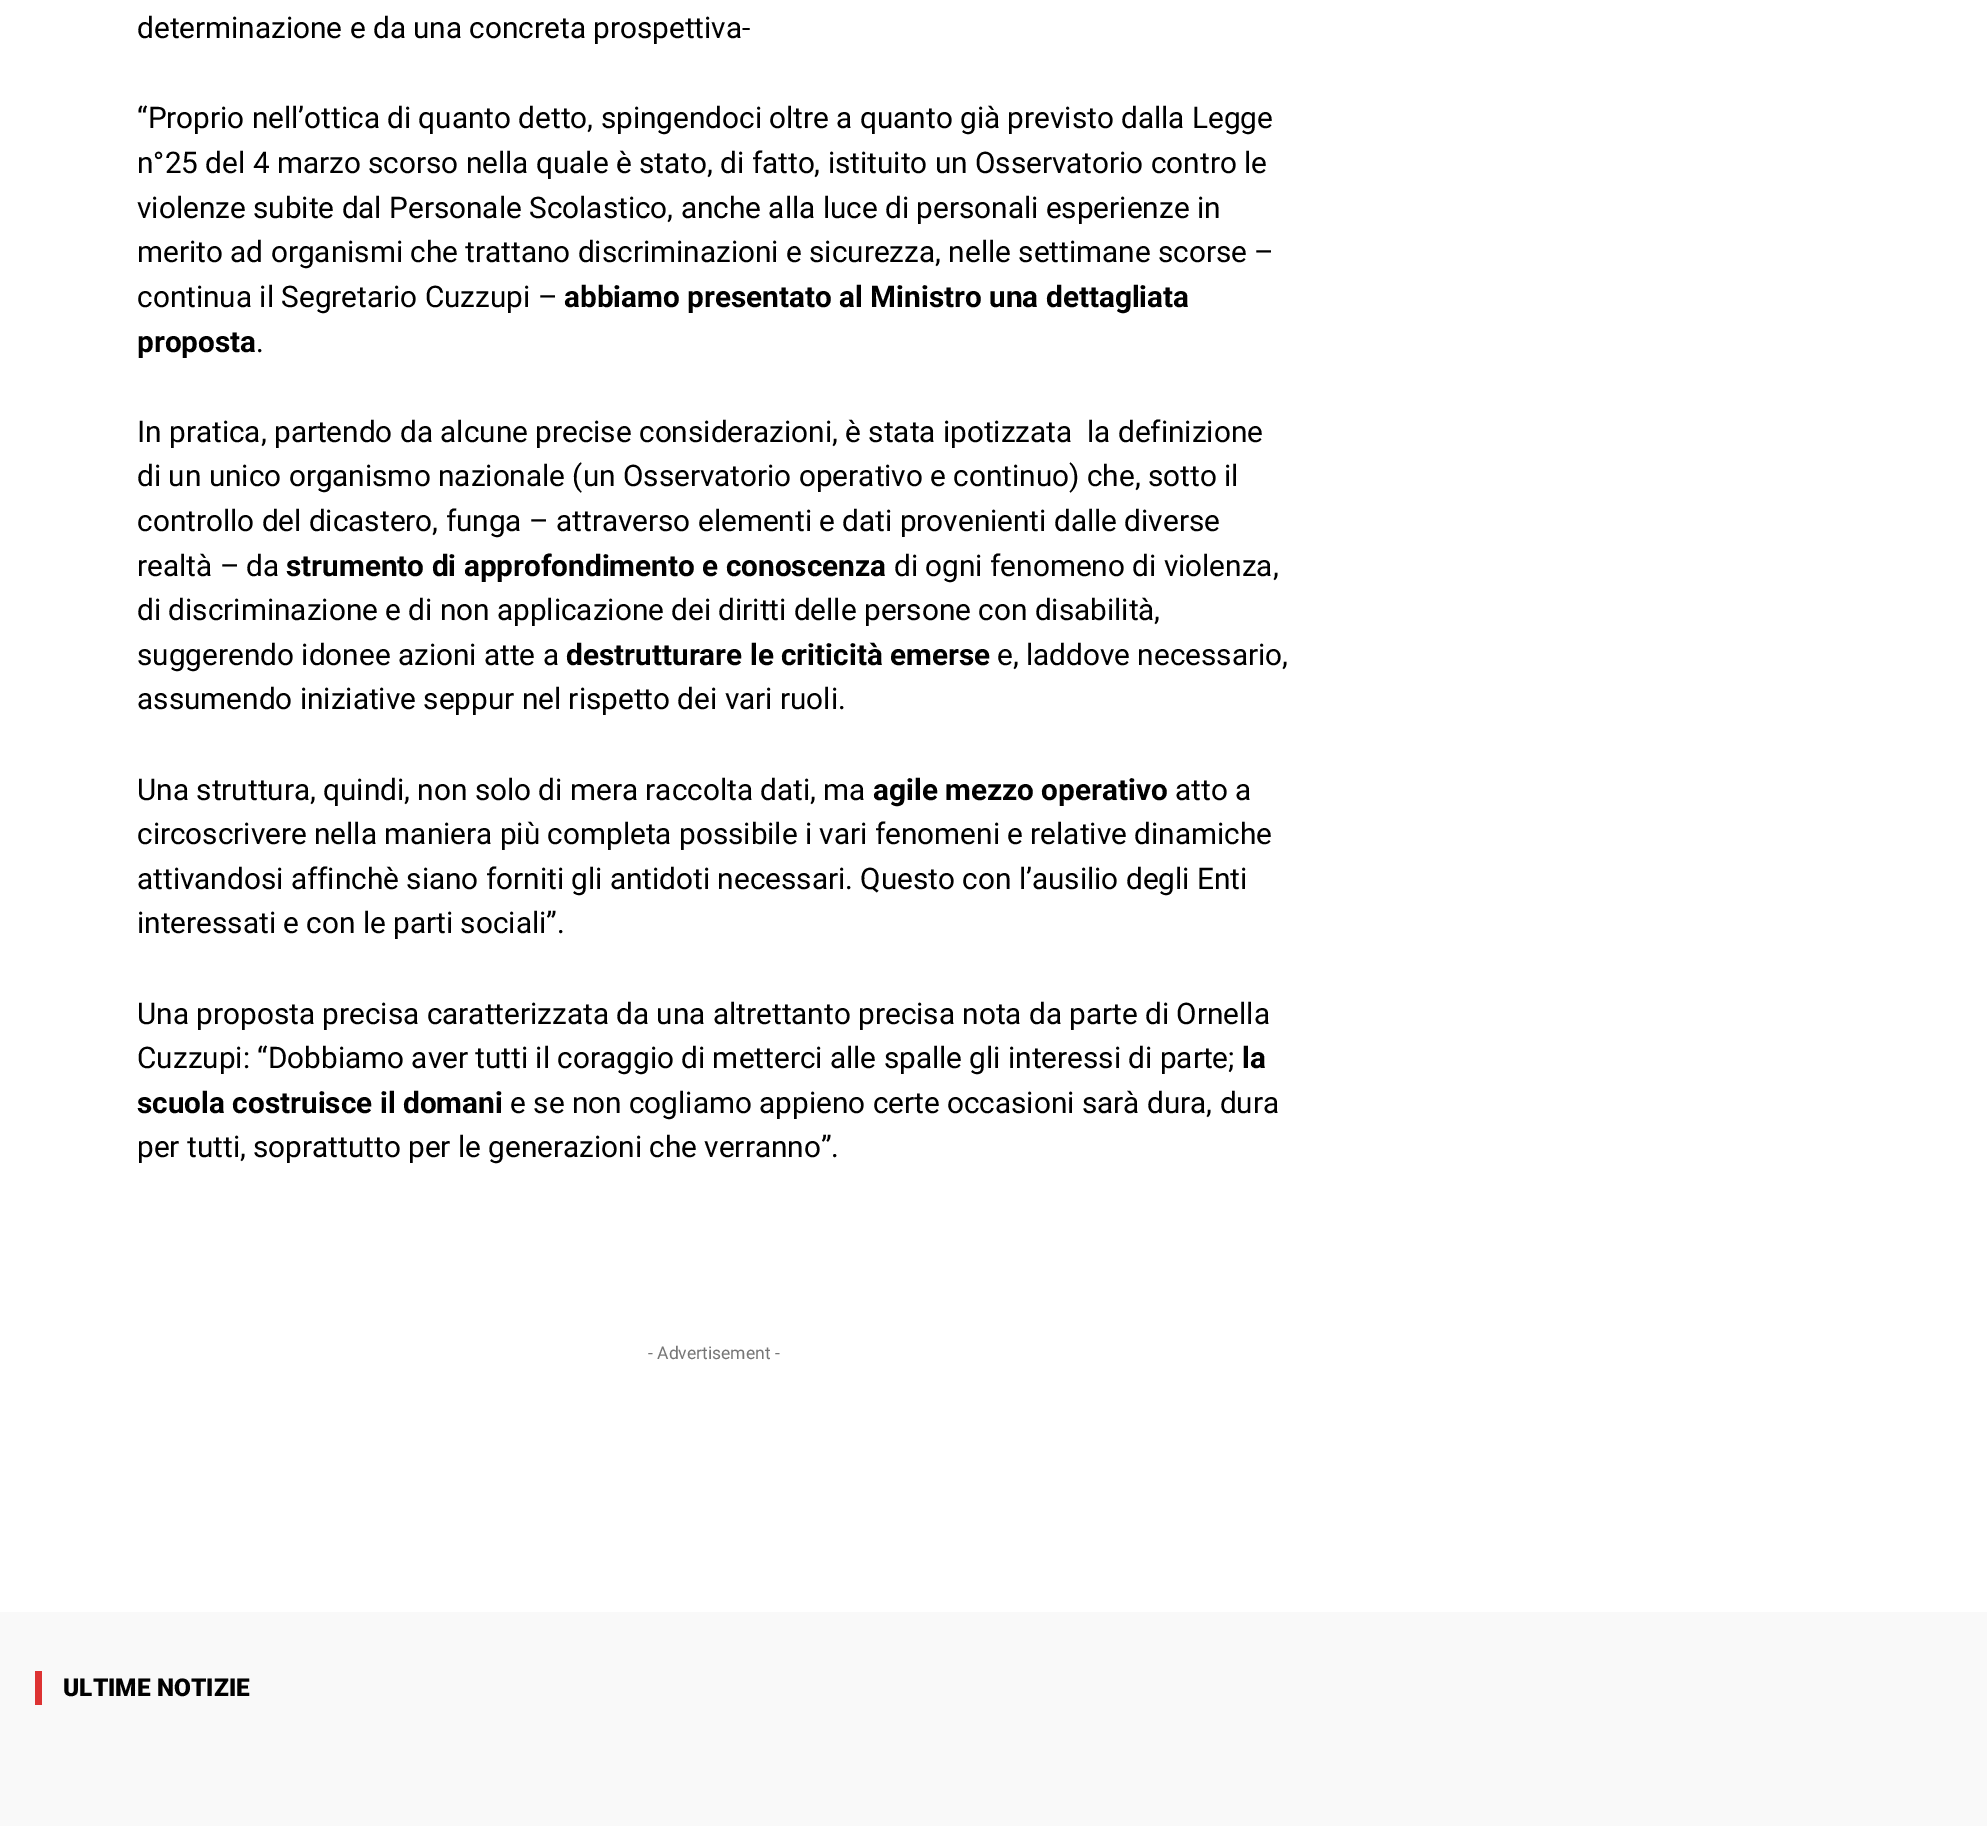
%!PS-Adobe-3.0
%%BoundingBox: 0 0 1987 1826
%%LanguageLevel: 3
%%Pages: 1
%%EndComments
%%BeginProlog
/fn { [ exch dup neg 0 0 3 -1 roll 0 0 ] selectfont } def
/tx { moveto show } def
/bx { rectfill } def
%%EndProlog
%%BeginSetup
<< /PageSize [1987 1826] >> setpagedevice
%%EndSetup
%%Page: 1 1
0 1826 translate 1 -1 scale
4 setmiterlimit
1 setgray
0 0 1987 1826 bx
/Roboto-Regular 29.75 fn
0 setgray
(determinazione e da una concreta prospettiva-) 137 38 tx
(“Proprio nell’ottica di quanto detto, spingendoci oltre a quanto già previsto dalla Legge) 137 128 tx
(n°25 del 4 marzo scorso nella quale è stato, di fatto, istituito un Osservatorio contro le) 137 173 tx
(violenze subite dal Personale Scolastico, anche alla luce di personali esperienze in) 137 218 tx
(merito ad organismi che trattano discriminazioni e sicurezza, nelle settimane scorse –) 137 262 tx
(continua il Segretario Cuzzupi –) 137 307 tx
/Roboto-Bold 29.75 fn
(abbiamo presentato al Ministro una dettagliata) 564 307 tx
(proposta) 137 352 tx
/Roboto-Regular 29.75 fn
(.) 256 352 tx
(In pratica, partendo da alcune precise considerazioni, è stata ipotizzata  la definizione) 137 442 tx
(di un unico organismo nazionale \(un Osservatorio operativo e continuo\) che, sotto il) 137 486 tx
(controllo del dicastero, funga – attraverso elementi e dati provenienti dalle diverse) 137 531 tx
(realtà – da) 137 576 tx
/Roboto-Bold 29.75 fn
(strumento di approfondimento e conoscenza) 286 576 tx
/Roboto-Regular 29.75 fn
(di ogni fenomeno di violenza,) 894 576 tx
(di discriminazione e di non applicazione dei diritti delle persone con disabilità,) 137 620 tx
(suggerendo idonee azioni atte a) 137 665 tx
/Roboto-Bold 29.75 fn
(destrutturare le criticità emerse) 566 665 tx
/Roboto-Regular 29.75 fn
(e, laddove necessario,) 997 665 tx
(assumendo iniziative seppur nel rispetto dei vari ruoli.) 137 709 tx
(Una struttura, quindi, non solo di mera raccolta dati, ma) 137 800 tx
/Roboto-Bold 29.75 fn
(agile mezzo operativo) 873 800 tx
/Roboto-Regular 29.75 fn
(atto a) 1175 800 tx
(circoscrivere nella maniera più completa possibile i vari fenomeni e relative dinamiche) 137 844 tx
(attivandosi affinchè siano forniti gli antidoti necessari. Questo con l’ausilio degli Enti) 137 889 tx
(interessati e con le parti sociali”.) 137 933 tx
(Una proposta precisa caratterizzata da una altrettanto precisa nota da parte di Ornella) 137 1024 tx
(Cuzzupi: “Dobbiamo aver tutti il coraggio di metterci alle spalle gli interessi di parte;) 137 1068 tx
/Roboto-Bold 29.75 fn
(la) 1242 1068 tx
(scuola costruisce il domani) 137 1113 tx
/Roboto-Regular 29.75 fn
(e se non cogliamo appieno certe occasioni sarà dura, dura) 510 1113 tx
(per tutti, soprattutto per le generazioni che verranno”.) 137 1157 tx
/Roboto-Regular 17.5 fn
0.463 setgray
(- Advertisement -) 648 1359 tx
0.976 setgray
0 1612 1987 214 bx
0.867 0.2 0.2 setrgbcolor
35 1671 7 34 bx
/Roboto-Black 24.5 fn
0 setgray
(ULTIME NOTIZIE) 63 1696 tx
showpage
%%EOF
